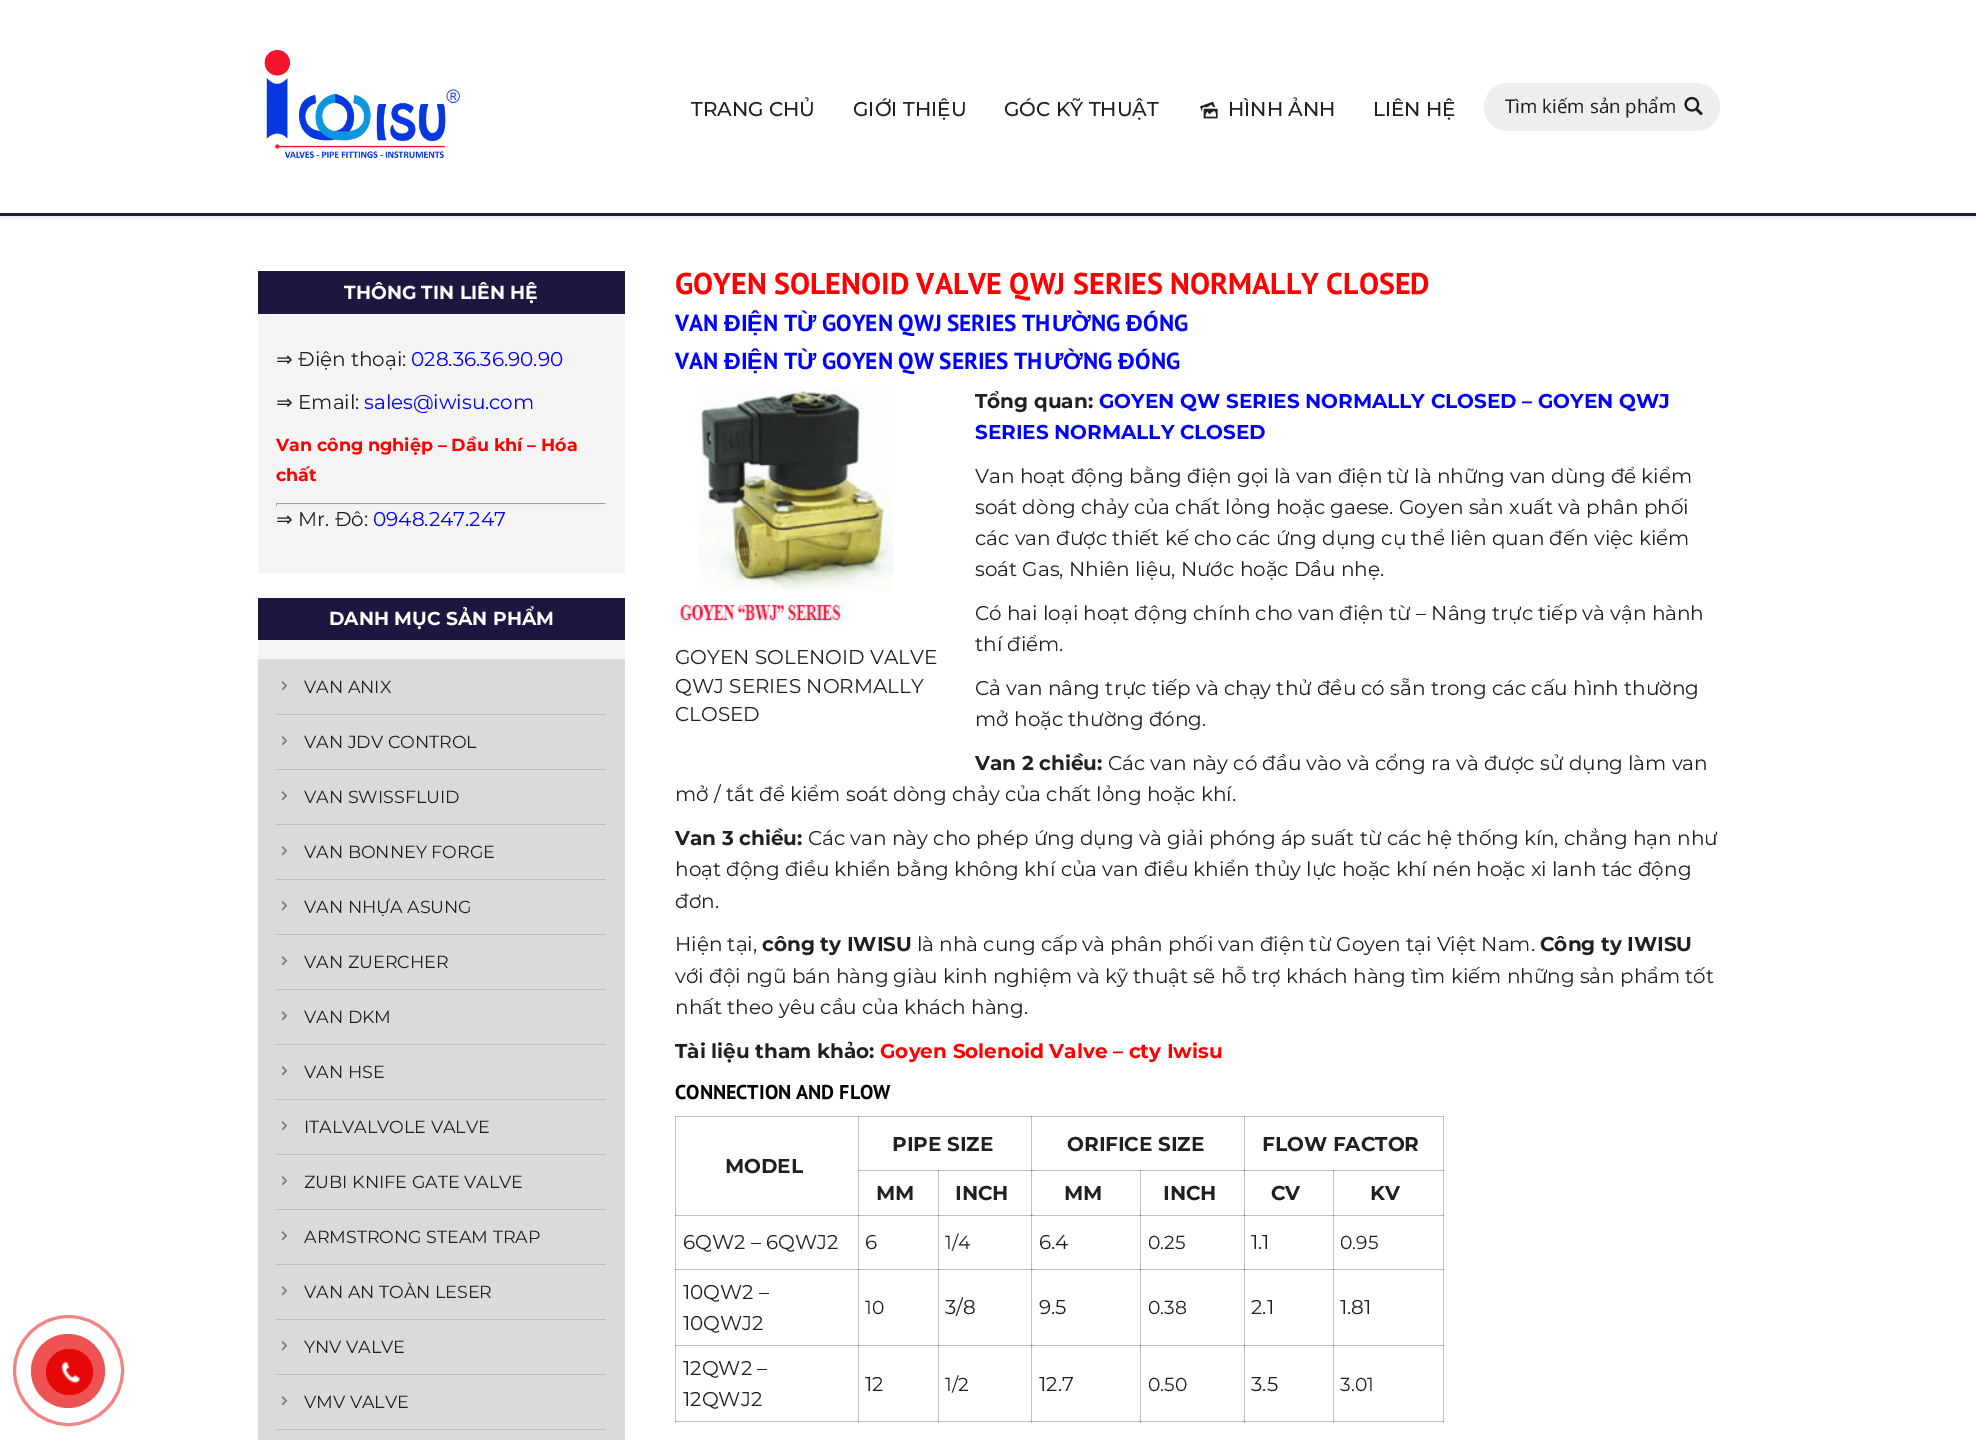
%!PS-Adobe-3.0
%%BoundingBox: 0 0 1976 1440
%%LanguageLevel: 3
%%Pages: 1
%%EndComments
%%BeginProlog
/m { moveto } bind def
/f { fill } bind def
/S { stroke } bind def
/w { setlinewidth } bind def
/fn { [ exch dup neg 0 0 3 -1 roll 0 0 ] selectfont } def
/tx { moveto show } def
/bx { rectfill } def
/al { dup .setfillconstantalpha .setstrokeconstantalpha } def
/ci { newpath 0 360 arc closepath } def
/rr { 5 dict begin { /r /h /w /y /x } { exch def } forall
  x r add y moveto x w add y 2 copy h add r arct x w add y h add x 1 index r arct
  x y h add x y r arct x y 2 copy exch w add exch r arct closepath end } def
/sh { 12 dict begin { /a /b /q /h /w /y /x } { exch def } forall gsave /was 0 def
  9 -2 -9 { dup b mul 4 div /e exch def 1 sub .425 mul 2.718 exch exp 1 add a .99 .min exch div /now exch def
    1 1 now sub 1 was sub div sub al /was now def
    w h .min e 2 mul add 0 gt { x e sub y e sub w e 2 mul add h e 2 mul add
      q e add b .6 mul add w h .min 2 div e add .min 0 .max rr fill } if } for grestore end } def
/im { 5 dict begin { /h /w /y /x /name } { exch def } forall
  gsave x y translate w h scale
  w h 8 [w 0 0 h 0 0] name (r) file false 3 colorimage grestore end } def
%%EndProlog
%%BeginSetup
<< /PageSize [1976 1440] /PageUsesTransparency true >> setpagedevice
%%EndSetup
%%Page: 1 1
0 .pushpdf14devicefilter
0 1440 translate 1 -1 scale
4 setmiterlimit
1 setgray
0 0 1976 1440 bx
0.761 setgray
858 1116 1 100 bx
1031 1116 1 55 bx
1244 1116 1 55 bx
858 1170 81 1 bx
0.514 0.514 0.522 setrgbcolor
858 1170 1 1 bx
0.761 setgray
938 1170 1 46 bx
938 1170 95 1 bx
0.514 0.514 0.522 setrgbcolor
938 1170 1 1 bx
0.761 setgray
1031 1170 1 46 bx
1031 1170 110 1 bx
0.584 0.584 0.588 setrgbcolor
1031 1170 2 1 bx
0.361 0.361 0.373 setrgbcolor
1031 1170 1 1 bx
0.761 setgray
1140 1170 1 46 bx
1140 1170 105 1 bx
0.514 0.514 0.522 setrgbcolor
1140 1170 1 1 bx
0.761 setgray
1244 1170 1 46 bx
1244 1170 90 1 bx
0.361 0.361 0.373 setrgbcolor
1244 1170 1 1 bx
0.761 setgray
1333 1170 1 46 bx
1333 1170 111 1 bx
0.514 0.514 0.522 setrgbcolor
1333 1170 1 1 bx
0.761 setgray
675 1215 184 1 bx
858 1215 1 55 bx
858 1215 81 1 bx
0.361 0.361 0.373 setrgbcolor
858 1215 1 1 bx
0.761 setgray
938 1215 1 55 bx
938 1215 95 1 bx
0.361 0.361 0.373 setrgbcolor
938 1215 1 1 bx
0.761 setgray
1031 1215 1 55 bx
1031 1215 110 1 bx
0.584 0.584 0.588 setrgbcolor
1031 1215 2 1 bx
0.361 0.361 0.373 setrgbcolor
1031 1215 1 1 bx
0.761 setgray
1140 1215 1 55 bx
1140 1215 105 1 bx
0.361 0.361 0.373 setrgbcolor
1140 1215 1 1 bx
0.761 setgray
1244 1215 1 55 bx
1244 1215 90 1 bx
0.361 0.361 0.373 setrgbcolor
1244 1215 1 1 bx
0.761 setgray
1333 1215 1 55 bx
1333 1215 111 1 bx
0.361 0.361 0.373 setrgbcolor
1333 1215 1 1 bx
0.761 setgray
675 1269 184 1 bx
858 1269 1 77 bx
858 1269 81 1 bx
0.361 0.361 0.373 setrgbcolor
858 1269 1 1 bx
0.761 setgray
938 1269 1 77 bx
938 1269 95 1 bx
0.361 0.361 0.373 setrgbcolor
938 1269 1 1 bx
0.761 setgray
1031 1269 1 77 bx
1031 1269 110 1 bx
0.584 0.584 0.588 setrgbcolor
1031 1269 2 1 bx
0.361 0.361 0.373 setrgbcolor
1031 1269 1 1 bx
0.761 setgray
1140 1269 1 77 bx
1140 1269 105 1 bx
0.361 0.361 0.373 setrgbcolor
1140 1269 1 1 bx
0.761 setgray
1244 1269 1 77 bx
1244 1269 90 1 bx
0.361 0.361 0.373 setrgbcolor
1244 1269 1 1 bx
0.761 setgray
1333 1269 1 77 bx
1333 1269 111 1 bx
0.361 0.361 0.373 setrgbcolor
1333 1269 1 1 bx
0.761 setgray
675 1345 184 1 bx
858 1345 1 78 bx
858 1345 81 1 bx
0.361 0.361 0.373 setrgbcolor
858 1345 1 1 bx
0.761 setgray
938 1345 1 78 bx
938 1345 95 1 bx
0.361 0.361 0.373 setrgbcolor
938 1345 1 1 bx
0.761 setgray
1031 1345 1 78 bx
1031 1345 110 1 bx
0.584 0.584 0.588 setrgbcolor
1031 1345 2 1 bx
0.361 0.361 0.373 setrgbcolor
1031 1345 1 1 bx
0.761 setgray
1140 1345 1 78 bx
1140 1345 105 1 bx
0.361 0.361 0.373 setrgbcolor
1140 1345 1 1 bx
0.761 setgray
1244 1345 1 78 bx
1244 1345 90 1 bx
0.361 0.361 0.373 setrgbcolor
1244 1345 1 1 bx
0.761 setgray
1333 1345 1 78 bx
1333 1345 111 1 bx
0.361 0.361 0.373 setrgbcolor
1333 1345 1 1 bx
0.761 setgray
675 1116 1 307 bx
0.514 0.514 0.522 setrgbcolor
675 1215 1 1 bx
675 1269 1 1 bx
675 1345 1 1 bx
0.761 setgray
675 1421 769 1 bx
0.514 0.514 0.522 setrgbcolor
858 1421 1 1 bx
938 1421 1 1 bx
0.667 setgray
1031 1421 2 1 bx
0.514 0.514 0.522 setrgbcolor
1031 1421 1 1 bx
1140 1421 1 1 bx
1244 1421 1 1 bx
1333 1421 1 1 bx
0.584 0.584 0.588 setrgbcolor
675 1421 1 1 bx
0.761 setgray
1443 1116 1 307 bx
0.514 0.514 0.522 setrgbcolor
1443 1170 1 1 bx
1443 1215 1 1 bx
1443 1269 1 1 bx
1443 1345 1 1 bx
0.584 0.584 0.588 setrgbcolor
1443 1421 1 1 bx
0.953 0.518 0.518 setrgbcolor
3 w
68.5 1370.5 54 ci S
0.933 0.322 0.322 setrgbcolor
68 1371 37 ci f
0.902 0.031 0.031 setrgbcolor
46 1349 47 46 23 rr f
(image0.raw) 61 1361 20 23 im
0 setgray
0 0 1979 218 0 2.5 0.1 sh
1 setgray
0 0 1976 213 bx
0.122 0.086 0.251 setrgbcolor
0 213 1976 3 bx
(image1.raw) 264 49 196 110 im
/Montserrat-Medium 20 fn
0.125 0.125 0.137 setrgbcolor
(TRANG CHỦ) 691 116 tx
(GIỚI THIỆU) 853 116 tx
(GÓC KỸ THUẬT) 1004 116 tx
(image2.raw) 1200 101 18 18 im
(HÌNH ẢNH) 1228 116 tx
(LIÊN HỆ) 1373 116 tx
0.933 setgray
1484 83 236 48 24 rr f
/OpenSans-Regular 18.75 fn
0.125 0.125 0.137 setrgbcolor
(Tìm kiếm sản phẩm) 1505 113 tx
(image3.raw) 1684 96 19 20 im
0.957 setgray
258 314 367 259 bx
0.122 0.086 0.251 setrgbcolor
258 271 367 43 bx
/Montserrat-Bold 18.75 fn
1 setgray
(THÔNG TIN LIÊN HỆ) 344 299 tx
/DejaVuSans-Regular 20 fn
0.125 0.125 0.137 setrgbcolor
(⇒) 276 366 tx
/Montserrat-Regular 20 fn
(Điện thoại:) 298 366 tx
0 0 1 setrgbcolor
(028.36.36.90.90) 411 366 tx
/DejaVuSans-Regular 20 fn
0.125 0.125 0.137 setrgbcolor
(⇒) 276 409 tx
/Montserrat-Regular 20 fn
(Email:) 298 409 tx
0 0 1 setrgbcolor
(sales@iwisu.com) 364 409 tx
/Montserrat-Bold 17.5 fn
1 0 0 setrgbcolor
(Van công nghiệp – Dầu khí – Hóa) 276 451 tx
(chất) 276 481 tx
0.624 setgray
276 503 330 1 bx
0.933 setgray
605 503 1 3 bx
276 504 330 1 bx
0.624 setgray
276 503 1 3 bx
/DejaVuSans-Regular 20 fn
0.125 0.125 0.137 setrgbcolor
(⇒) 276 526 tx
/Montserrat-Regular 20 fn
(Mr. Đô:) 298 526 tx
0 0 1 setrgbcolor
(0948.247.247) 373 526 tx
0.957 setgray
258 640 367 19 bx
0.122 0.086 0.251 setrgbcolor
258 598 367 42 bx
/Montserrat-Bold 18.75 fn
1 setgray
(DANH MỤC SẢN PHẨM) 329 625 tx
0.859 0.855 0.855 setrgbcolor
258 659 367 781 bx
(image4.raw) 281 681 7 10 im
/Montserrat-Regular 17.5 fn
0.125 0.125 0.137 setrgbcolor
(VAN ANIX) 304 693 tx
0.749 0.745 0.749 setrgbcolor
276 714 330 1 bx
(image4.raw) 281 736 7 10 im
0.125 0.125 0.137 setrgbcolor
(VAN JDV CONTROL) 304 748 tx
0.749 0.745 0.749 setrgbcolor
276 769 330 1 bx
(image4.raw) 281 791 7 10 im
0.125 0.125 0.137 setrgbcolor
(VAN SWISSFLUID) 304 803 tx
0.749 0.745 0.749 setrgbcolor
276 824 330 1 bx
(image4.raw) 281 846 7 10 im
0.125 0.125 0.137 setrgbcolor
(VAN BONNEY FORGE) 304 858 tx
0.749 0.745 0.749 setrgbcolor
276 879 330 1 bx
(image4.raw) 281 901 7 10 im
0.125 0.125 0.137 setrgbcolor
(VAN NHỰA ASUNG) 304 913 tx
0.749 0.745 0.749 setrgbcolor
276 934 330 1 bx
(image4.raw) 281 956 7 10 im
0.125 0.125 0.137 setrgbcolor
(VAN ZUERCHER) 304 968 tx
0.749 0.745 0.749 setrgbcolor
276 989 330 1 bx
(image4.raw) 281 1011 7 10 im
0.125 0.125 0.137 setrgbcolor
(VAN DKM) 304 1023 tx
0.749 0.745 0.749 setrgbcolor
276 1044 330 1 bx
(image4.raw) 281 1066 7 10 im
0.125 0.125 0.137 setrgbcolor
(VAN HSE) 304 1078 tx
0.749 0.745 0.749 setrgbcolor
276 1099 330 1 bx
(image4.raw) 281 1121 7 10 im
0.125 0.125 0.137 setrgbcolor
(ITALVALVOLE VALVE) 304 1133 tx
0.749 0.745 0.749 setrgbcolor
276 1154 330 1 bx
(image4.raw) 281 1176 7 10 im
0.125 0.125 0.137 setrgbcolor
(ZUBI KNIFE GATE VALVE) 304 1188 tx
0.749 0.745 0.749 setrgbcolor
276 1209 330 1 bx
(image4.raw) 281 1231 7 10 im
0.125 0.125 0.137 setrgbcolor
(ARMSTRONG STEAM TRAP) 304 1243 tx
0.749 0.745 0.749 setrgbcolor
276 1264 330 1 bx
(image4.raw) 281 1286 7 10 im
0.125 0.125 0.137 setrgbcolor
(VAN AN TOÀN LESER) 304 1298 tx
0.749 0.745 0.749 setrgbcolor
276 1319 330 1 bx
(image4.raw) 281 1341 7 10 im
0.125 0.125 0.137 setrgbcolor
(YNV VALVE) 304 1353 tx
0.749 0.745 0.749 setrgbcolor
276 1374 330 1 bx
(image4.raw) 281 1396 7 10 im
0.125 0.125 0.137 setrgbcolor
(VMV VALVE) 304 1408 tx
0.749 0.745 0.749 setrgbcolor
276 1429 330 1 bx
/PTSans-Bold 30 fn
1 0 0 setrgbcolor
(GOYEN SOLENOID VALVE QWJ SERIES NORMALLY CLOSED) 675 294 tx
/PTSans-Bold 23.25 fn
0 0 1 setrgbcolor
(VAN) 675 331 tx
/LiberationSans-Bold 23.25 fn
(Đ Ệ) 724 331 tx
(Ừ) 797 331 tx
(ƯỜ) 1052 331 tx
/PTSans-Bold 23.25 fn
(ÓNG) 1143 331 tx
(I) 741 331 tx
763 331 m -0.5 0 32 (N T) widthshow
822 331 m -0.5 0 32 (GOYEN QWJ SERIES TH) widthshow
(NG) 1091 331 tx
/LiberationSans-Bold 23.25 fn
(Đ) 1126 331 tx
/PTSans-Bold 23.25 fn
(VAN) 675 369 tx
/LiberationSans-Bold 23.25 fn
(Đ Ệ) 724 369 tx
(Ừ) 797 369 tx
(ƯỜ) 1044 369 tx
/PTSans-Bold 23.25 fn
(ÓNG) 1135 369 tx
(I) 741 369 tx
763 369 m -0.5 0 32 (N T) widthshow
822 369 m -0.5 0 32 (GOYEN QW SERIES TH) widthshow
(NG) 1083 369 tx
/LiberationSans-Bold 23.25 fn
(Đ) 1118 369 tx
/Montserrat-Bold 20 fn
0.125 0.125 0.137 setrgbcolor
(Tổng quan:) 975 408 tx
0 0 1 setrgbcolor
(GOYEN QW SERIES NORMALLY CLOSED – GOYEN QWJ) 1099 408 tx
(SERIES NORMALLY CLOSED) 975 439 tx
/Montserrat-Regular 20 fn
0.125 0.125 0.137 setrgbcolor
(Van hoạt động bằng điện gọi là van điện từ là những van dùng để kiểm) 975 483 tx
(soát dòng chảy của chất lỏng hoặc gaese. Goyen sản xuất và phân phối) 975 514 tx
(các van được thiết kế cho các ứng dụng cụ thể liên quan đến việc kiểm) 975 545 tx
(soát Gas, Nhiên liệu, Nước hoặc Dầu nhẹ.) 975 576 tx
(Có hai loại hoạt động chính cho van điện từ – Nâng trực tiếp và vận hành) 975 620 tx
(thí điểm.) 975 651 tx
(image5.raw) 675 385 220 240 im
(GOYEN SOLENOID VALVE) 675 664 tx
(QWJ SERIES NORMALLY) 675 693 tx
(CLOSED) 675 721 tx
(Cả van nâng trực tiếp và chạy thử đều có sẵn trong các cấu hình thường) 975 695 tx
(mở hoặc thường đóng.) 975 726 tx
/Montserrat-Bold 20 fn
(Van 2 chiều:) 975 770 tx
/Montserrat-Regular 20 fn
(Các van này có đầu vào và cổng ra và được sử dụng làm van) 1108 770 tx
(mở / tắt để kiểm soát dòng chảy của chất lỏng hoặc khí.) 675 801 tx
/Montserrat-Bold 20 fn
(Van 3 chiều:) 675 845 tx
/Montserrat-Regular 20 fn
(Các van này cho phép ứng dụng và giải phóng áp suất từ các hệ thống kín, chẳng hạn như) 808 845 tx
(hoạt động điều khiển bằng không khí của van điều khiển thủy lực hoặc khí nén hoặc xi lanh tác động) 675 876 tx
(đơn.) 675 908 tx
(Hiện tại,) 675 951 tx
/Montserrat-Bold 20 fn
(công ty IWISU) 762 951 tx
/Montserrat-Regular 20 fn
(là nhà cung cấp và phân phối van điện từ Goyen tại Việt Nam.) 917 951 tx
/Montserrat-Bold 20 fn
(Công ty IWISU) 1540 951 tx
/Montserrat-Regular 20 fn
(với đội ngũ bán hàng giàu kinh nghiệm và kỹ thuật sẽ hỗ trợ khách hàng tìm kiếm những sản phẩm tốt) 675 983 tx
(nhất theo yêu cầu của khách hàng.) 675 1014 tx
/Montserrat-Bold 20 fn
(Tài liệu tham khảo:) 675 1058 tx
1 0 0 setrgbcolor
(Goyen Solenoid Valve – cty Iwisu) 880 1058 tx
/PTSans-Bold 20 fn
0 setgray
(CONNECTION AND FLOW) 675 1099 tx
0.761 setgray
675 1116 769 1 bx
0.514 0.514 0.522 setrgbcolor
858 1116 1 1 bx
0.667 setgray
1031 1116 2 1 bx
0.514 0.514 0.522 setrgbcolor
1031 1116 1 1 bx
1244 1116 1 1 bx
0.584 0.584 0.588 setrgbcolor
675 1116 1 1 bx
1443 1116 1 1 bx
/Montserrat-Bold 20 fn
0.125 0.125 0.137 setrgbcolor
(PIPE SIZE) 892 1151 tx
(ORIFICE SIZE) 1067 1151 tx
(FLOW FACTOR) 1262 1151 tx
(MODEL) 725 1173 tx
(MM) 876 1200 tx
(INCH) 955 1200 tx
(MM) 1064 1200 tx
(INCH) 1163 1200 tx
(CV) 1271 1200 tx
(KV) 1370 1200 tx
/Montserrat-Regular 20 fn
(6QW2 – 6QWJ2) 683 1249 tx
(6) 865 1249 tx
/Montserrat-Regular 18.75 fn
(1/4) 945 1249 tx
/Montserrat-Regular 20 fn
(6.4) 1039 1249 tx
/Montserrat-Regular 18.75 fn
(0.25) 1148 1249 tx
/Montserrat-Regular 20 fn
(1.1) 1251 1249 tx
/Montserrat-Regular 18.75 fn
(0.95) 1340 1249 tx
/Montserrat-Regular 20 fn
(10QW2 –) 683 1299 tx
(10QWJ2) 683 1330 tx
/Montserrat-Regular 18.75 fn
(10) 865 1314 tx
/Montserrat-Regular 20 fn
(3/8) 945 1314 tx
(9.5) 1039 1314 tx
/Montserrat-Regular 18.75 fn
(0.38) 1148 1314 tx
/Montserrat-Regular 20 fn
(2.1) 1251 1314 tx
(1.81) 1340 1314 tx
(12QW2 –) 683 1375 tx
(12QWJ2) 683 1406 tx
(12) 865 1391 tx
/Montserrat-Regular 18.75 fn
(1/2) 945 1391 tx
/Montserrat-Regular 20 fn
(12.7) 1039 1391 tx
/Montserrat-Regular 18.75 fn
(0.50) 1148 1391 tx
/Montserrat-Regular 20 fn
(3.5) 1251 1391 tx
/Montserrat-Regular 18.75 fn
(3.01) 1340 1391 tx
.poppdf14devicefilter showpage
%%EOF
